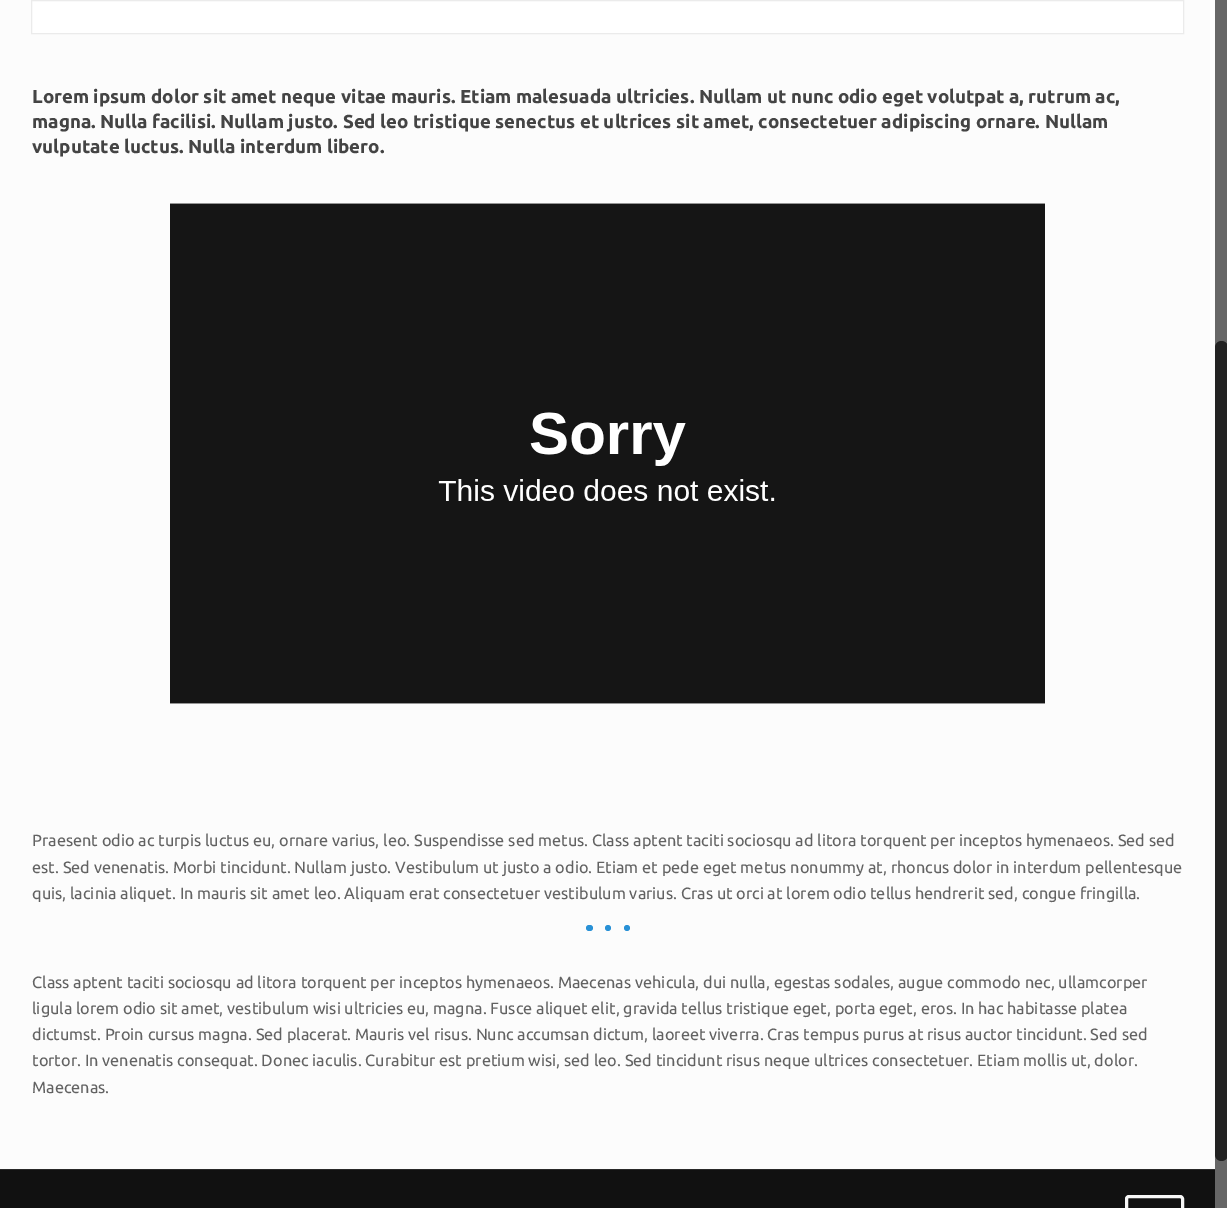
%!PS-Adobe-3.0
%%BoundingBox: 0 0 1227 1208
%%LanguageLevel: 3
%%Pages: 1
%%EndComments
%%BeginProlog
/m { moveto } bind def
/l { lineto } bind def
/h { closepath } bind def
/f { fill } bind def
/S { stroke } bind def
/q { gsave } bind def
/Q { grestore } bind def
/w { setlinewidth } bind def
/fn { [ exch dup neg 0 0 3 -1 roll 0 0 ] selectfont } def
/tx { moveto show } def
/bx { rectfill } def
/ci { newpath 0 360 arc closepath } def
/rr { 5 dict begin { /r /h /w /y /x } { exch def } forall
  x r add y moveto x w add y 2 copy h add r arct x w add y h add x 1 index r arct
  x y h add x y r arct x y 2 copy exch w add exch r arct closepath end } def
/im { 5 dict begin { /h /w /y /x /name } { exch def } forall
  gsave x y translate w h scale
  w h 8 [w 0 0 h 0 0] name (r) file false 3 colorimage grestore end } def
%%EndProlog
%%BeginSetup
<< /PageSize [1227 1208] >> setpagedevice
%%EndSetup
%%Page: 1 1
0 1208 translate 1 -1 scale
4 setmiterlimit
0.988 setgray
0 0 1227 1208 bx
1 setgray
31.5 0.5 m 1183.5 0.5 l 1183.5 33.5 l 31.5 33.5 l h q f Q
0.922 setgray
S
/Ubuntu-Bold 18.75 fn
0.267 setgray
(Lorem ipsum dolor sit amet neque vitae mauris. Etiam malesuada ultricies. Nullam ut nunc odio eget volutpat a, rutrum ac,) 32 103 tx
(magna. Nulla facilisi. Nullam justo. Sed leo tristique senectus et ultrices sit amet, consectetuer adipiscing ornare. Nullam) 32 128 tx
(vulputate luctus. Nulla interdum libero.) 32 153 tx
(image0.raw) 170 203 875 501 im
/Ubuntu-Regular 16.25 fn
0.384 setgray
(Praesent odio ac turpis luctus eu, ornare varius, leo. Suspendisse sed metus. Class aptent taciti sociosqu ad litora torquent per inceptos hymenaeos. Sed sed) 32 846 tx
(est. Sed venenatis. Morbi tincidunt. Nullam justo. Vestibulum ut justo a odio. Etiam et pede eget metus nonummy at, rhoncus dolor in interdum pellentesque) 32 873 tx
(quis, lacinia aliquet. In mauris sit amet leo. Aliquam erat consectetuer vestibulum varius. Cras ut orci at lorem odio tellus hendrerit sed, congue fringilla.) 32 899 tx
0.161 0.569 0.839 setrgbcolor
586 925 7 6 3 rr f
608 928 3 ci f
627 928 3 ci f
0.384 setgray
(Class aptent taciti sociosqu ad litora torquent per inceptos hymenaeos. Maecenas vehicula, dui nulla, egestas sodales, augue commodo nec, ullamcorper) 32 988 tx
(ligula lorem odio sit amet, vestibulum wisi ultricies eu, magna. Fusce aliquet elit, gravida tellus tristique eget, porta eget, eros. In hac habitasse platea) 32 1014 tx
(dictumst. Proin cursus magna. Sed placerat. Mauris vel risus. Nunc accumsan dictum, laoreet viverra. Cras tempus purus at risus auctor tincidunt. Sed sed) 32 1040 tx
(tortor. In venenatis consequat. Donec iaculis. Curabitur est pretium wisi, sed leo. Sed tincidunt risus neque ultrices consectetuer. Etiam mollis ut, dolor.) 32 1066 tx
(Maecenas.) 32 1093 tx
0.067 setgray
0 1170 1215 38 bx
0.161 setgray
0 1169 1215 1 bx
0.969 setgray
3 w
1126.5 1196.5 56 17 2.5 rr S
0.4 setgray
1215 0 12 1208 bx
0.133 setgray
1215 341 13 820 6.5 rr f
showpage
%%EOF
